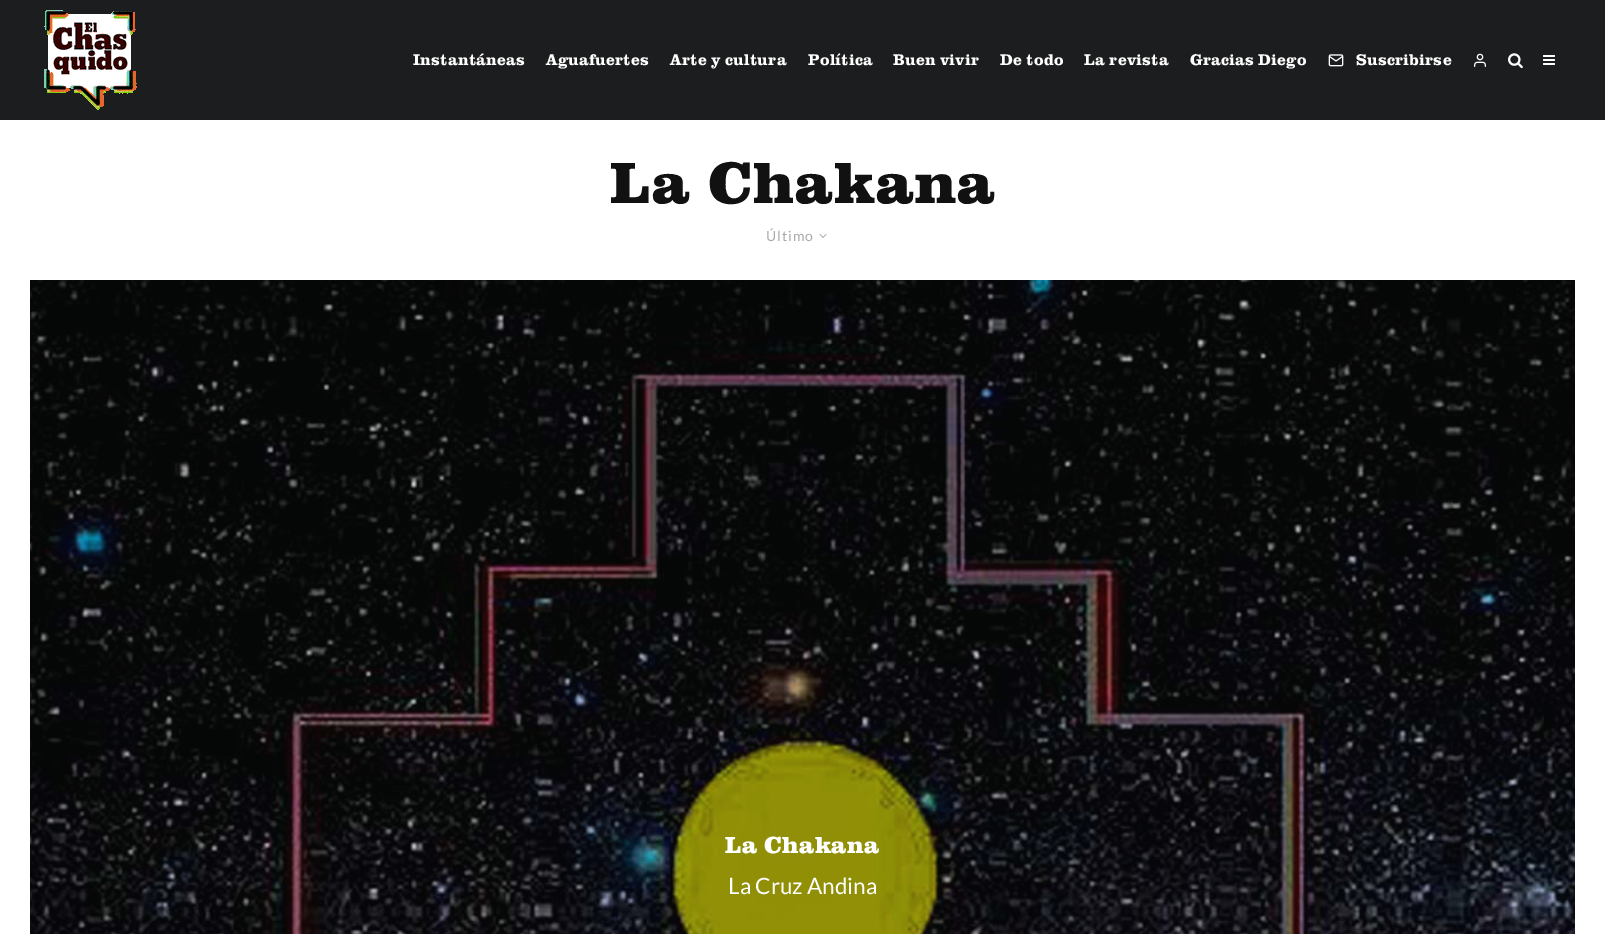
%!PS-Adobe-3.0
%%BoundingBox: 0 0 1605 934
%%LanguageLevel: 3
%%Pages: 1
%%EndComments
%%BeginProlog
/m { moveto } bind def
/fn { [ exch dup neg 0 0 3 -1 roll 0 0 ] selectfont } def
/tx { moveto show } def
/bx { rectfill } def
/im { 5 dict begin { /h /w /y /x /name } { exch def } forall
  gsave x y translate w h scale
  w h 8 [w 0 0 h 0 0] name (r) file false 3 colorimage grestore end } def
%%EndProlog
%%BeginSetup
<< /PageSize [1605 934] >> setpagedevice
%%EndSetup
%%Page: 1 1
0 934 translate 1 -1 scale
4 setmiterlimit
1 setgray
0 0 1605 934 bx
0.11 0.114 0.118 setrgbcolor
0 0 1605 120 bx
(image0.raw) 44 10 93 100 im
/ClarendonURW-Bold 16 fn
1 setgray
413 65 m 0.25 0 (Instantáneas) ashow
546 65 m 0.25 0 (Aguafuertes) ashow
670 65 m 0.25 0 (Arte y cultura) ashow
808 65 m 0.25 0 (Política) ashow
893 65 m 0.25 0 (Buen vivir) ashow
1000 65 m 0.25 0 (De todo) ashow
1084 65 m 0.25 0 (La revista) ashow
1190 65 m 0.25 0 (Gracias Diego) ashow
(image1.raw) 1328 54 16 13 im
1356 65 m 0.25 0 (Suscribirse) ashow
(image2.raw) 1474 53 12 14 im
(image3.raw) 1508 53 15 16 im
(image4.raw) 1543 55 12 10 im
/ClarendonURW-ExtraBold 60 fn
0.067 setgray
610 203 m 1.25 0 (La Chakana) ashow
/Lato-Regular 14 fn
0.667 setgray
766 241 m 1 0 (Último) ashow
(image5.raw) 819 234 8 4 im
(image6.raw) 30 280 1545 654 im
/ClarendonURW-ExtraBold 24 fn
1 setgray
725 853 m 0.5 0 (La Chakana) ashow
/Lato-Regular 22.5 fn
(La Cruz Andina) 728 894 tx
showpage
%%EOF
